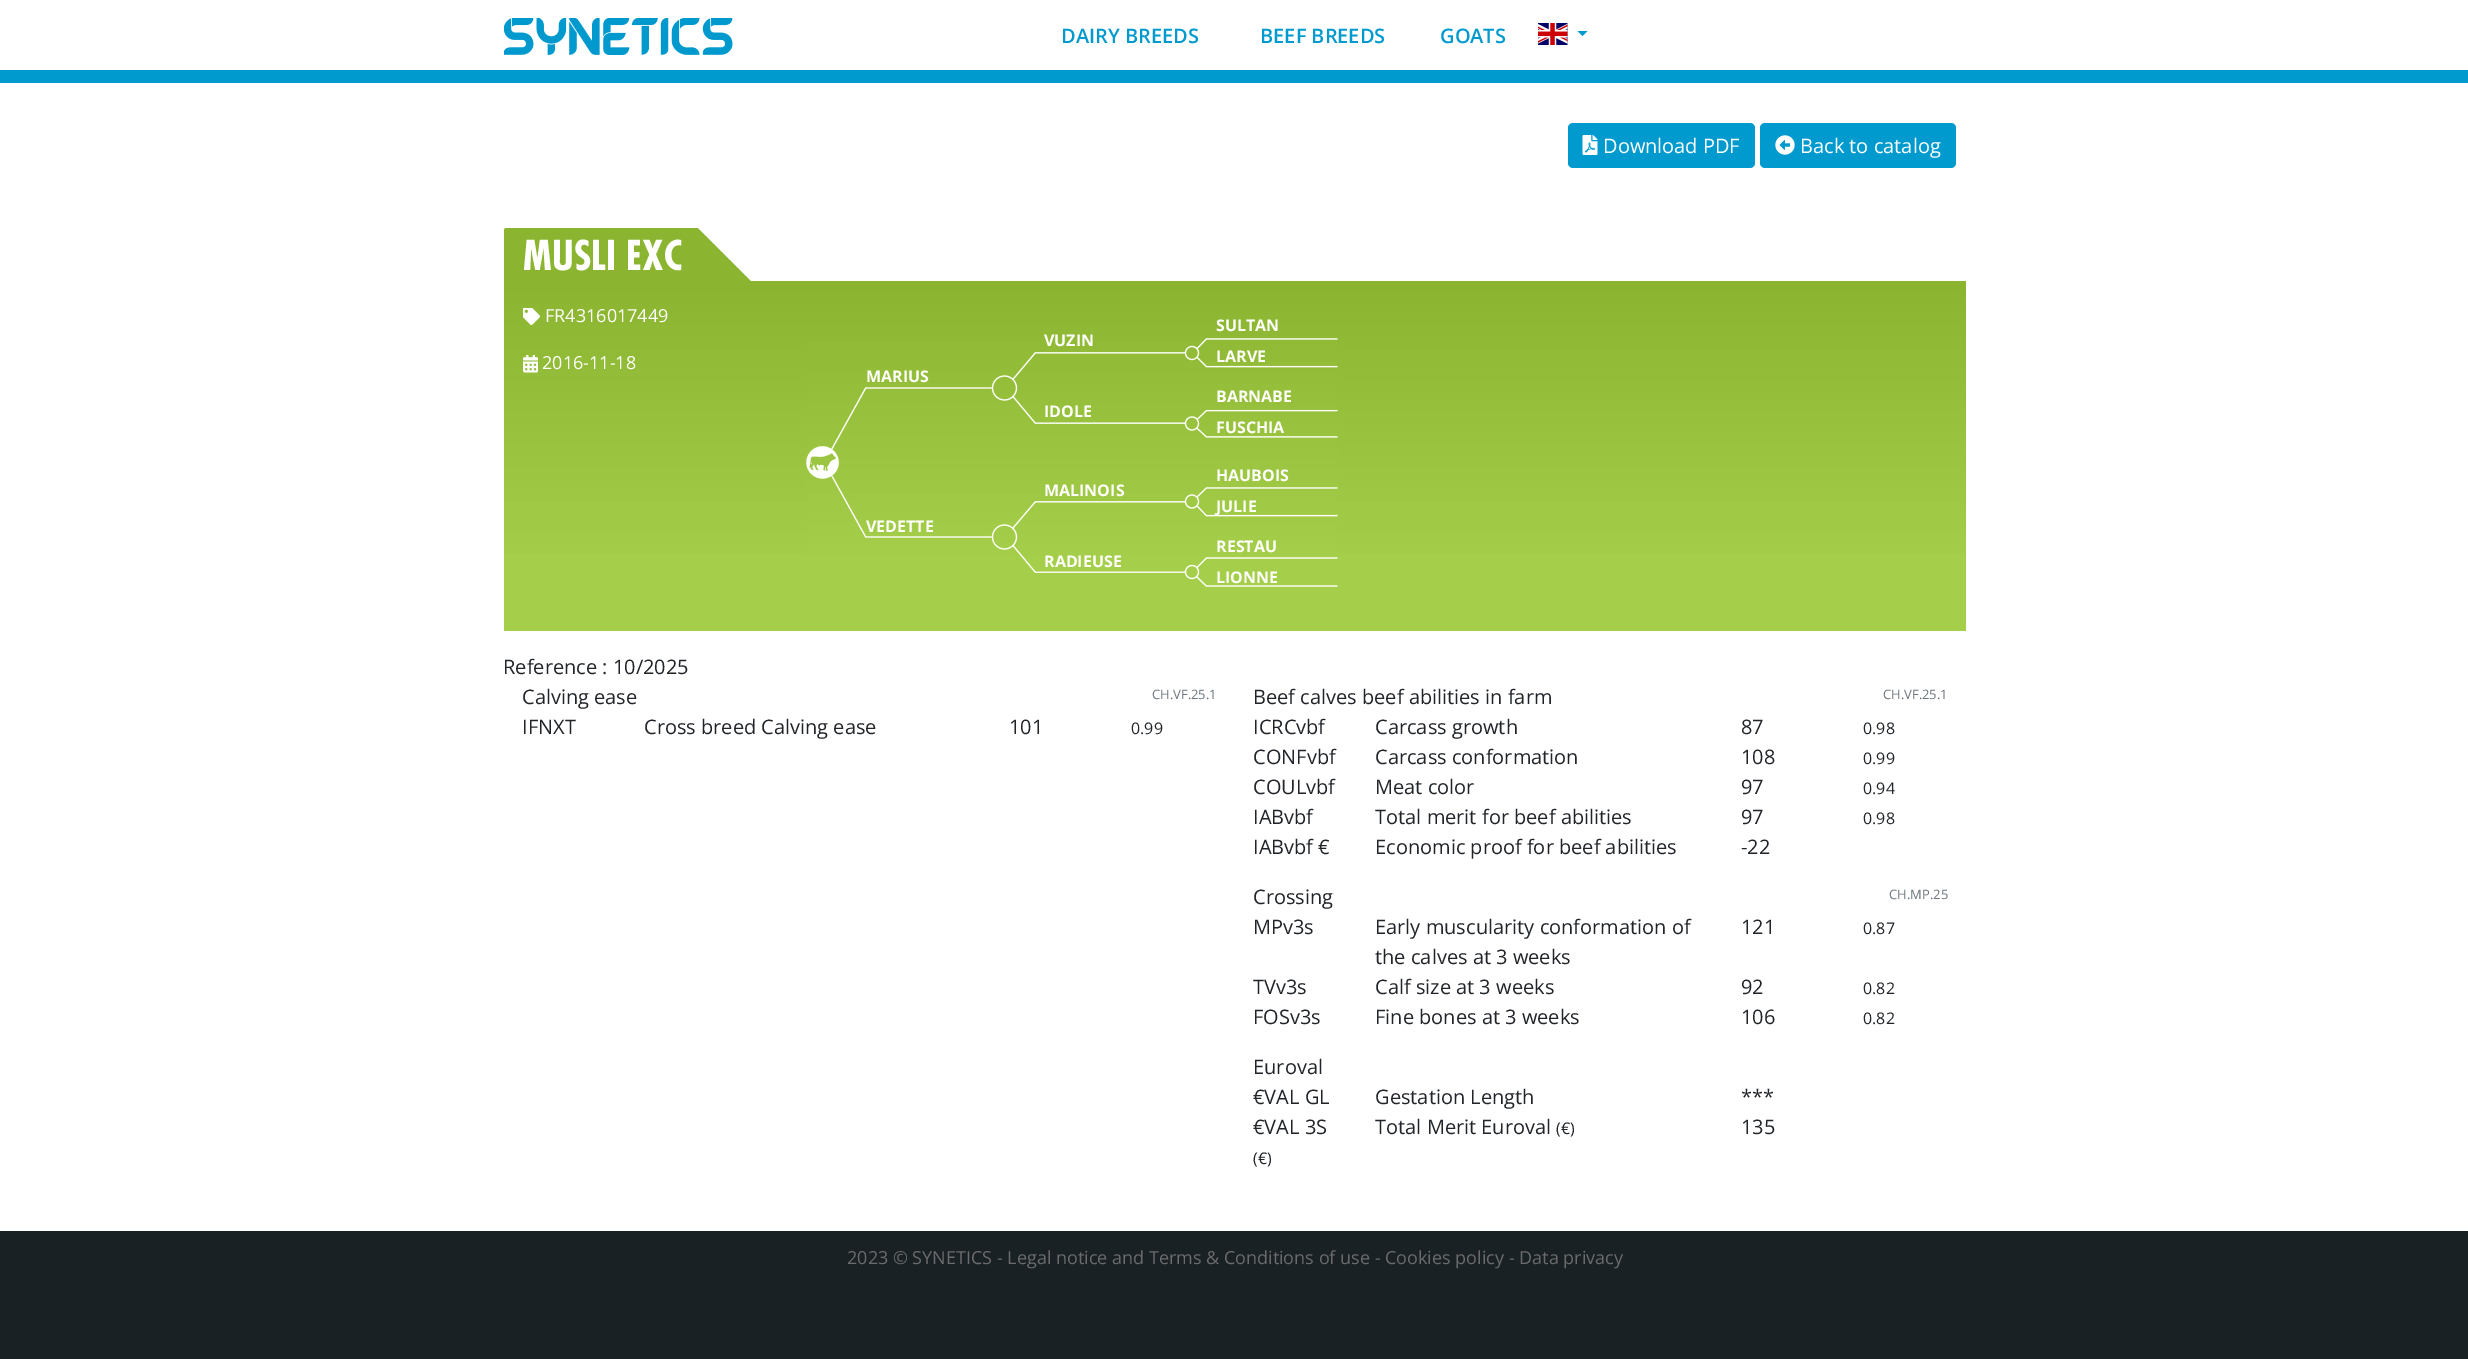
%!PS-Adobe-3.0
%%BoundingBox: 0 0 2468 1359
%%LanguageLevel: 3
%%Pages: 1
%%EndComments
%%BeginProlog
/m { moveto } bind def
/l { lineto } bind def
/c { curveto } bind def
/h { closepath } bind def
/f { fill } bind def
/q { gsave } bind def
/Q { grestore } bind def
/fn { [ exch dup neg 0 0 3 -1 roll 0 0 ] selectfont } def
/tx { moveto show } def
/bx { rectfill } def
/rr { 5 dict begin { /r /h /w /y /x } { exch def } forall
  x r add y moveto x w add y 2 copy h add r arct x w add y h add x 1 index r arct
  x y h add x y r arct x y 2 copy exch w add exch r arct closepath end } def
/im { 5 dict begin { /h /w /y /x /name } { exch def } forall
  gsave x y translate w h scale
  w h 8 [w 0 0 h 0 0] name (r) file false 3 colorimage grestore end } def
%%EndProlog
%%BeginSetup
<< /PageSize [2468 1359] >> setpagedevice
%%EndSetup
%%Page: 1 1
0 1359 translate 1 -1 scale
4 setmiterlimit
0.098 0.129 0.145 setrgbcolor
0 0 2468 1359 bx
1 setgray
0 0 2468 1231 bx
0 0.604 0.808 setrgbcolor
0 70 2468 13 bx
(image0.raw) 504 18 229 37 im
/OpenSans-SemiBold 20 fn
(DAIRY BREEDS) 1061 43 tx
(BEEF BREEDS) 1260 43 tx
(GOATS) 1440 43 tx
(image1.raw) 1538 23 30 22 im
1577.5 31 m 1587.5 31 l 1582.5 36 l h f
1568 123 187 45 5 rr f
(image2.raw) 1582 135 16 20 im
/OpenSans-Regular 20 fn
1 setgray
(Download PDF) 1603 153 tx
0 0.604 0.808 setrgbcolor
1760 123 196 45 5 rr f
(image3.raw) 1775 135 20 20 im
1 setgray
(Back to catalog) 1800 153 tx
0.545 0.71 0.188 setrgbcolor
506.5 228 m 748.5 228 l 750 228 751 229 751 230.5 c 751 281 l 504 281 l 504 230.5 l 504 229 505 228 506.5 228 c h f
/Futura-Bold 40 fn
1 setgray
(MUSLI EXC) 523 270 tx
751 228 m 751 281 l 698 228 l h f
q 504 281 m 1966 281 l 1966 631 l 504 631 l h clip newpath
<< /ShadingType 2 /ColorSpace /DeviceRGB /Coords [1235 281 1235 631] /Extend [true true] /Function << /FunctionType 3 /Domain [0 1] /Functions [<< /FunctionType 2 /Domain [0 1] /C0 [0.545 0.71 0.188] /C1 [0.647 0.812 0.29] /N 1 >> << /FunctionType 2 /Domain [0 1] /C0 [0.647 0.812 0.29] /C1 [0.647 0.812 0.29] /N 1 >>] /Bounds [0.8] /Encode [0 1 0 1] >> >> shfill Q
(image4.raw) 523 308 17 17 im
/OpenSans-Regular 18 fn
(FR4316017449) 545 322 tx
(image5.raw) 523 355 15 18 im
(2016-11-18) 542 369 tx
(image6.raw) 806 338 532 249 im
/OpenSans-Bold 16 fn
(MARIUS) 866 382 tx
(VUZIN) 1044 346 tx
(SULTAN) 1216 331 tx
(LARVE) 1216 362 tx
(IDOLE) 1044 417 tx
(BARNABE) 1216 402 tx
(FUSCHIA) 1216 433 tx
(VEDETTE) 866 532 tx
(MALINOIS) 1044 496 tx
(HAUBOIS) 1216 481 tx
(JULIE) 1216 512 tx
(RADIEUSE) 1044 567 tx
(RESTAU) 1216 552 tx
(LIONNE) 1216 583 tx
/OpenSans-Regular 20 fn
0.129 0.145 0.161 setrgbcolor
(Reference : 10/2025) 503 674 tx
(Calving ease) 522 704 tx
/OpenSans-Regular 13 fn
0.424 0.459 0.49 setrgbcolor
(CH.VF.25.1) 1152 699 tx
/OpenSans-Regular 20 fn
0.129 0.145 0.161 setrgbcolor
(IFNXT) 522 734 tx
(Cross breed Calving ease) 644 734 tx
(101) 1009 734 tx
/OpenSans-Regular 16 fn
(0.99) 1131 734 tx
/OpenSans-Regular 20 fn
(Beef calves beef abilities in farm) 1253 704 tx
/OpenSans-Regular 13 fn
0.424 0.459 0.49 setrgbcolor
(CH.VF.25.1) 1883 699 tx
/OpenSans-Regular 20 fn
0.129 0.145 0.161 setrgbcolor
(ICRCvbf) 1253 734 tx
(Carcass growth) 1375 734 tx
(87) 1741 734 tx
/OpenSans-Regular 16 fn
(0.98) 1863 734 tx
/OpenSans-Regular 20 fn
(CONFvbf) 1253 764 tx
(Carcass conformation) 1375 764 tx
(108) 1741 764 tx
/OpenSans-Regular 16 fn
(0.99) 1863 764 tx
/OpenSans-Regular 20 fn
(COULvbf) 1253 794 tx
(Meat color) 1375 794 tx
(97) 1741 794 tx
/OpenSans-Regular 16 fn
(0.94) 1863 794 tx
/OpenSans-Regular 20 fn
(IABvbf) 1253 824 tx
(Total merit for beef abilities) 1375 824 tx
(97) 1741 824 tx
/OpenSans-Regular 16 fn
(0.98) 1863 824 tx
/OpenSans-Regular 20 fn
(IABvbf €) 1253 854 tx
(Economic proof for beef abilities) 1375 854 tx
(-22) 1741 854 tx
(Crossing) 1253 904 tx
/OpenSans-Regular 13 fn
0.424 0.459 0.49 setrgbcolor
(CH.MP.25) 1889 899 tx
/OpenSans-Regular 20 fn
0.129 0.145 0.161 setrgbcolor
(MPv3s) 1253 934 tx
(Early muscularity conformation of) 1375 934 tx
(the calves at 3 weeks) 1375 964 tx
(121) 1741 934 tx
/OpenSans-Regular 16 fn
(0.87) 1863 934 tx
/OpenSans-Regular 20 fn
(TVv3s) 1253 994 tx
(Calf size at 3 weeks) 1375 994 tx
(92) 1741 994 tx
/OpenSans-Regular 16 fn
(0.82) 1863 994 tx
/OpenSans-Regular 20 fn
(FOSv3s) 1253 1024 tx
(Fine bones at 3 weeks) 1375 1024 tx
(106) 1741 1024 tx
/OpenSans-Regular 16 fn
(0.82) 1863 1024 tx
/OpenSans-Regular 20 fn
(Euroval) 1253 1074 tx
(€VAL GL) 1253 1104 tx
(Gestation Length) 1375 1104 tx
(***) 1741 1104 tx
(€VAL 3S) 1253 1134 tx
/OpenSans-Regular 16 fn
(\(€\)) 1253 1164 tx
/OpenSans-Regular 20 fn
(Total Merit Euroval) 1375 1134 tx
/OpenSans-Regular 16 fn
(\(€\)) 1556 1134 tx
/OpenSans-Regular 20 fn
(135) 1741 1134 tx
/OpenSans-Regular 18 fn
0.42 setgray
(2023 © SYNETICS - Legal notice and Terms & Conditions of use - Cookies policy - Data privacy) 847 1264 tx
showpage
%%EOF
